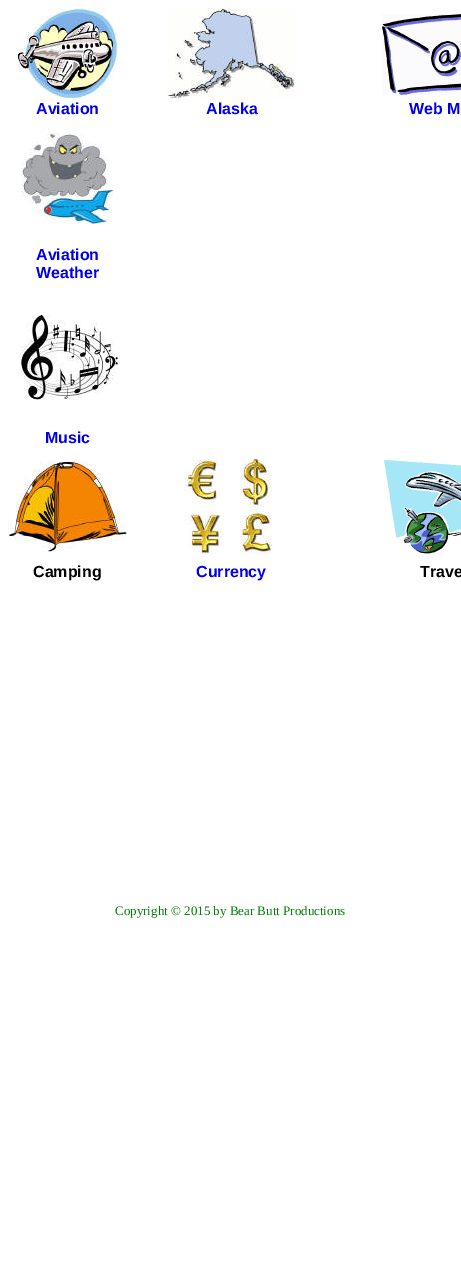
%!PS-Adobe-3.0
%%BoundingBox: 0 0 461 1281
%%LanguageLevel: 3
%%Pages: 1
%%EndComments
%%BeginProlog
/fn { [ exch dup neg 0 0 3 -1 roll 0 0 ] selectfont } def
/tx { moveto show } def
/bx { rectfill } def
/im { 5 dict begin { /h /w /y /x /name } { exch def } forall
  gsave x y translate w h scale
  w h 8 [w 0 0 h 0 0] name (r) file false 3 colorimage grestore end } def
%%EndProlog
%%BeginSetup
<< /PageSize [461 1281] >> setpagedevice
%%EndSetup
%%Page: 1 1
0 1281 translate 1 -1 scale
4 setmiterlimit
1 setgray
0 0 461 1281 bx
(image0.raw) 18 8 100 91 im
(image1.raw) 167 8 128 91 im
(image2.raw) 382 14 79 81 im
/LiberationSans-Bold 16 fn
0 0 0.933 setrgbcolor
(Aviation) 36 114 tx
(Alaska) 206 114 tx
(Web M) 409 114 tx
(image3.raw) 21 133 93 91 im
(Aviation) 36 260 tx
(Weather) 36 278 tx
(image4.raw) 18 314 100 86 im
(Music) 45 443 tx
(image5.raw) 8 461 119 91 im
(image6.raw) 184 459 89 95 im
(image7.raw) 384 460 77 94 im
0 setgray
(Camping) 33 577 tx
0 0 0.933 setrgbcolor
(Currency) 196 577 tx
0 setgray
(Trave) 420 577 tx
/LiberationSerif-Regular 13 fn
0 0.502 0 setrgbcolor
(Copyright © 2015 by Bear Butt Productions) 115 915 tx
showpage
%%EOF
